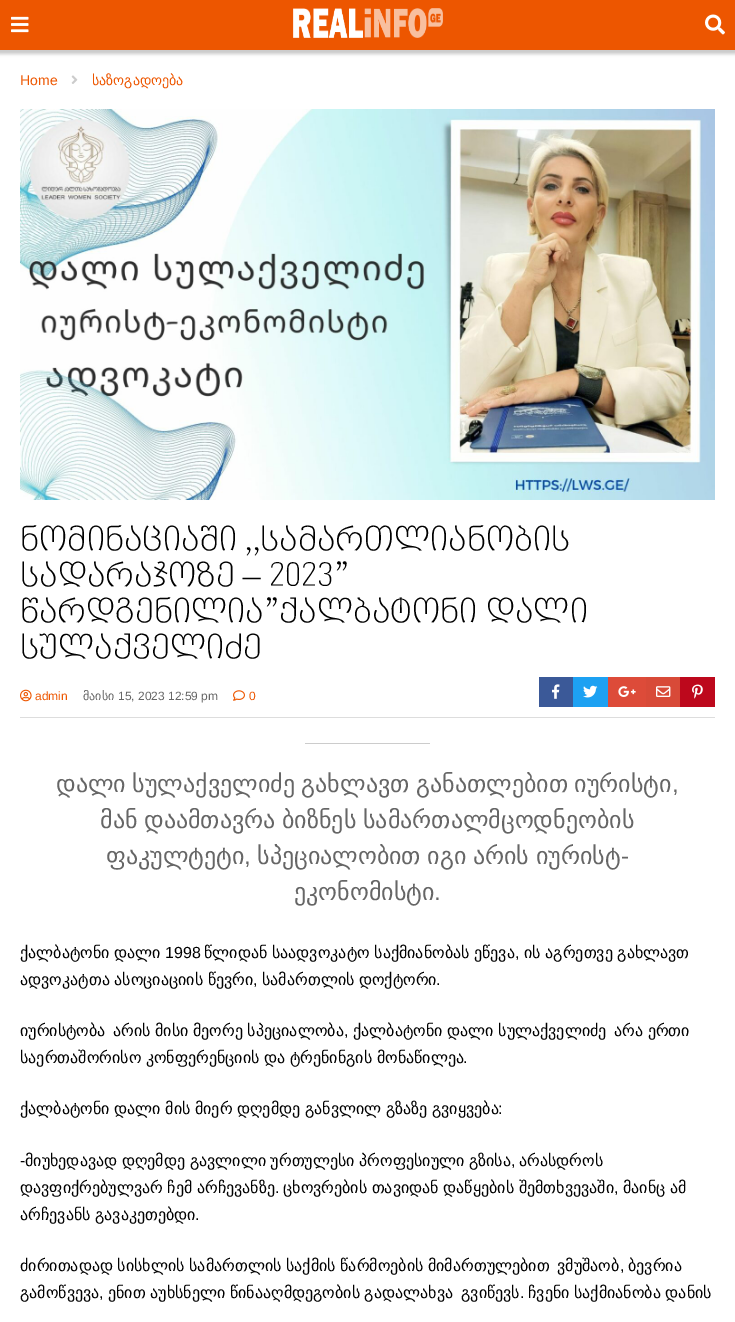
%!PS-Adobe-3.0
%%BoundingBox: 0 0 735 1322
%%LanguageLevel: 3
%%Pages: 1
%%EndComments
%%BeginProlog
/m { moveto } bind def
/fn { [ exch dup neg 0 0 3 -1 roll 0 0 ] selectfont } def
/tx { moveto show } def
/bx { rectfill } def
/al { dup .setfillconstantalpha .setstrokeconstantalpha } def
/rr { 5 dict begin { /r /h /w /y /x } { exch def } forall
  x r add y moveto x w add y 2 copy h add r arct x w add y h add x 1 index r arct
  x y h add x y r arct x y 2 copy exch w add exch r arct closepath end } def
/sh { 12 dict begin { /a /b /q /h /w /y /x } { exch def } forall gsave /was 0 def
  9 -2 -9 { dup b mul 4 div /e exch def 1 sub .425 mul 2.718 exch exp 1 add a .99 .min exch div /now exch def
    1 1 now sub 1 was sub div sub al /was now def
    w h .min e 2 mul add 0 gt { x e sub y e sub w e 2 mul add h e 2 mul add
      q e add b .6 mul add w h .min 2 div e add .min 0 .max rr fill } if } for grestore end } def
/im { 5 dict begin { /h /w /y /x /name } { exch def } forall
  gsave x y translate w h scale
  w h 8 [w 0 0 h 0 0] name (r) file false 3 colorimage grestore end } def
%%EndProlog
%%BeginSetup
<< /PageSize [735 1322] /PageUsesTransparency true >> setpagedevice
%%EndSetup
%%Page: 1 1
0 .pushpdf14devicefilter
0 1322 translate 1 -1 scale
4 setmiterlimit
1 setgray
0 0 735 1322 bx
0 setgray
-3 -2 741 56 0 1.5 0.2 sh
0.929 0.337 0 setrgbcolor
0 0 735 50 bx
(image0.raw) 11 16 18 17 im
(image1.raw) 293 8 150 30 im
(image2.raw) 705 14 20 21 im
/LiberationSans-Regular 14 fn
(Home) 20 85 tx
(image3.raw) 71 75 7 9 im
/DejaVuSans-Regular 14 fn
(საზოგადოება) 92 85 tx
(image4.raw) 20 109 695 391 im
/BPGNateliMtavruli-Light 36 fn
0 setgray
(ნომინაციაში ,,სამართლიანობის) 20 550 tx
(სადარაჯოზე – 2023”) 20 586 tx
(წარდგენილია”ქალბატონი დალი) 20 622 tx
(სულაქველიძე) 20 658 tx
0.867 setgray
20 717 695 1 bx
(image5.raw) 20 689 12 13 im
/LiberationSans-Regular 12 fn
0.929 0.337 0 setrgbcolor
(admin) 35 700 tx
/DejaVuSans-Regular 12 fn
0.4 setgray
(მაისი) 83 700 tx
/LiberationSans-Regular 12 fn
(15, 2023 12:59 pm) 118 700 tx
(image6.raw) 233 690 12 11 im
0.929 0.337 0 setrgbcolor
(0) 249 700 tx
0.231 0.349 0.596 setrgbcolor
539 677 34 30 bx
(image7.raw) 552 684 8 15 im
0.114 0.631 0.949 setrgbcolor
573 677 35 30 bx
(image8.raw) 583 685 15 13 im
0.867 0.294 0.224 setrgbcolor
608 677 38 30 bx
(image9.raw) 618 686 18 11 im
0.847 0.29 0.22 setrgbcolor
646 677 34 30 bx
(image10.raw) 656 686 15 11 im
0.741 0.031 0.11 setrgbcolor
680 677 35 30 bx
(image11.raw) 692 684 11 15 im
0.8 setgray
305 743 125 1 bx
/DejaVuSans-Regular 24 fn
0.4 setgray
56 792 m -1 0 32 (დალი სულაქველიძე გახლავთ განათლებით იურისტი) widthshow
/LiberationSans-Regular 24 fn
(,) 672 792 tx
/DejaVuSans-Regular 24 fn
100 828 m -1 0 32 (მან დაამთავრა ბიზნეს სამართალმცოდნეობის) widthshow
(ფაკულტეტი) 106 864 tx
257 864 m -1 0 32 (სპეციალობით იგი არის იურისტ) widthshow
/LiberationSans-Regular 24 fn
(-) 621 864 tx
(,) 244 864 tx
/DejaVuSans-Regular 24 fn
(ეკონომისტი) 294 900 tx
/LiberationSans-Regular 24 fn
(.) 434 900 tx
/DejaVuSans-Regular 16 fn
0 setgray
20 958 m -0.5 0 32 (ქალბატონი დალი) widthshow
/LiberationSans-Regular 16 fn
(1998) 165 958 tx
/DejaVuSans-Regular 16 fn
204 958 m -0.5 0 32 (წლიდან საადვოკატო საქმიანობას ეწევა) widthshow
/LiberationSans-Regular 16 fn
(,) 515 958 tx
/DejaVuSans-Regular 16 fn
524 958 m -0.5 0 32 (ის აგრეთვე გახლავთ) widthshow
20 985 m -0.5 0 32 (ადვოკატთა ასოციაციის წევრი) widthshow
/LiberationSans-Regular 16 fn
(,) 253 985 tx
/DejaVuSans-Regular 16 fn
262 985 m -0.5 0 32 (სამართლის დოქტორი) widthshow
/LiberationSans-Regular 16 fn
(.) 436 985 tx
/DejaVuSans-Regular 16 fn
(იურისტობა) 20 1036 tx
113 1036 m -0.5 0 32 (არის მისი მეორე სპეციალობა) widthshow
/LiberationSans-Regular 16 fn
(,) 344 1036 tx
/DejaVuSans-Regular 16 fn
353 1036 m -0.5 0 32 (ქალბატონი დალი სულაქველიძე) widthshow
614 1036 m -0.5 0 32 (არა ერთი) widthshow
20 1063 m -0.5 0 32 (საერთაშორისო კონფერენციის და ტრენინგის მონაწილეა) widthshow
/LiberationSans-Regular 16 fn
(.) 463 1063 tx
/DejaVuSans-Regular 16 fn
20 1114 m -0.5 0 32 (ქალბატონი დალი მის მიერ დღემდე განვლილ გზაზე გვიყვება) widthshow
/LiberationSans-Regular 16 fn
(:) 498 1114 tx
(-) 20 1166 tx
/DejaVuSans-Regular 16 fn
25 1166 m -0.5 0 32 (მიუხედავად დღემდე გავლილი ურთულესი პროფესიული გზისა) widthshow
(არასდროს) 519 1166 tx
/LiberationSans-Regular 16 fn
(,) 511 1166 tx
/DejaVuSans-Regular 16 fn
20 1193 m -0.5 0 32 (დავფიქრებულვარ ჩემ არჩევანზე) widthshow
/LiberationSans-Regular 16 fn
(.) 275 1193 tx
/DejaVuSans-Regular 16 fn
283 1193 m -0.5 0 32 (ცხოვრების თავიდან დაწყების შემთხვევაში) widthshow
/LiberationSans-Regular 16 fn
(,) 614 1193 tx
/DejaVuSans-Regular 16 fn
623 1193 m -0.5 0 32 (მაინც ამ) widthshow
20 1220 m -0.5 0 32 (არჩევანს გავაკეთებდი) widthshow
/LiberationSans-Regular 16 fn
(.) 195 1220 tx
/DejaVuSans-Regular 16 fn
20 1271 m -0.5 0 32 (ძირითადად სისხლის სამართლის საქმის წარმოების მიმართულებით) widthshow
(ვმუშაობ) 557 1271 tx
/LiberationSans-Regular 16 fn
(,) 620 1271 tx
/DejaVuSans-Regular 16 fn
(ბევრია) 628 1271 tx
(გამოწვევა) 20 1298 tx
/LiberationSans-Regular 16 fn
(,) 99 1298 tx
/DejaVuSans-Regular 16 fn
108 1298 m -0.5 0 32 (ენით აუხსნელი წინააღმდეგობის გადალახვა) widthshow
(გვიწევს) 461 1298 tx
/LiberationSans-Regular 16 fn
(.) 520 1298 tx
/DejaVuSans-Regular 16 fn
528 1298 m -0.5 0 32 (ჩვენი საქმიანობა დანის) widthshow
.poppdf14devicefilter showpage
%%EOF
